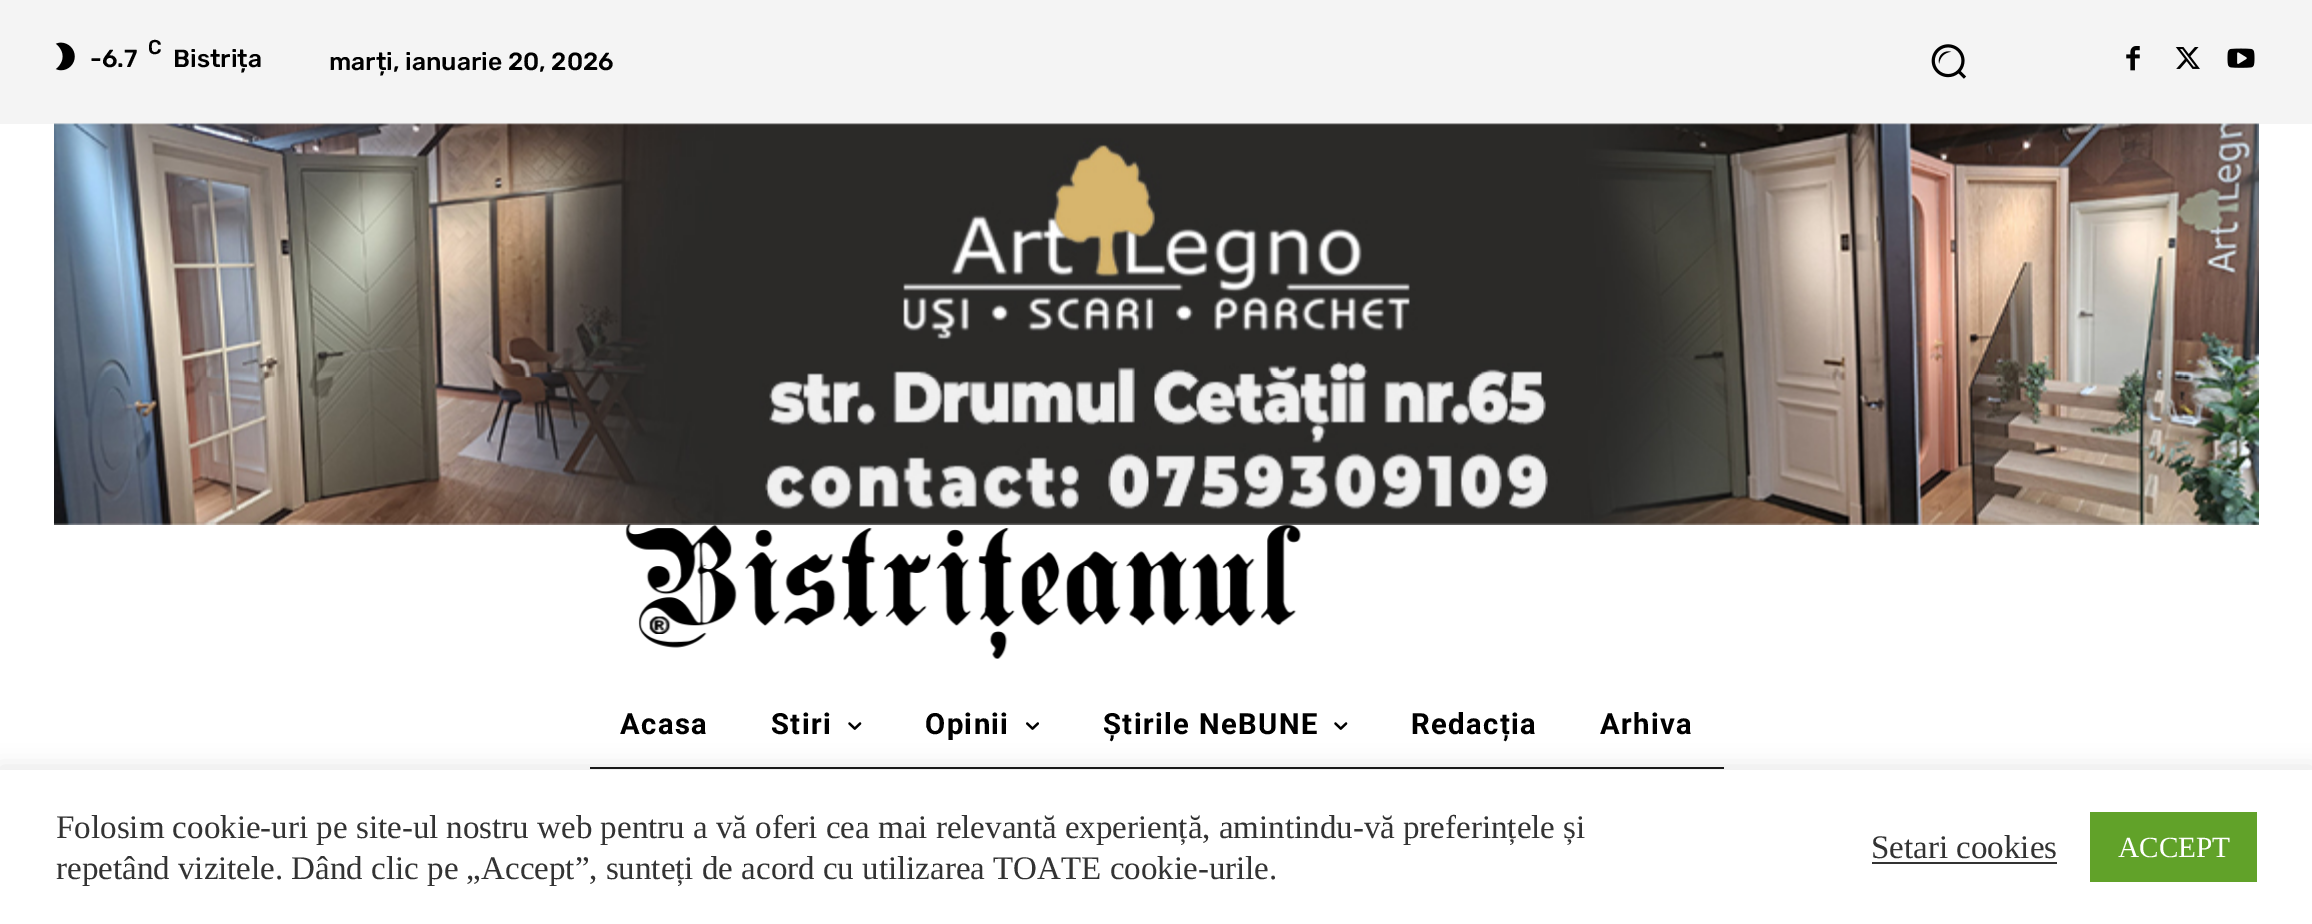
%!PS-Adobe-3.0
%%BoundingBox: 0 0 2312 924
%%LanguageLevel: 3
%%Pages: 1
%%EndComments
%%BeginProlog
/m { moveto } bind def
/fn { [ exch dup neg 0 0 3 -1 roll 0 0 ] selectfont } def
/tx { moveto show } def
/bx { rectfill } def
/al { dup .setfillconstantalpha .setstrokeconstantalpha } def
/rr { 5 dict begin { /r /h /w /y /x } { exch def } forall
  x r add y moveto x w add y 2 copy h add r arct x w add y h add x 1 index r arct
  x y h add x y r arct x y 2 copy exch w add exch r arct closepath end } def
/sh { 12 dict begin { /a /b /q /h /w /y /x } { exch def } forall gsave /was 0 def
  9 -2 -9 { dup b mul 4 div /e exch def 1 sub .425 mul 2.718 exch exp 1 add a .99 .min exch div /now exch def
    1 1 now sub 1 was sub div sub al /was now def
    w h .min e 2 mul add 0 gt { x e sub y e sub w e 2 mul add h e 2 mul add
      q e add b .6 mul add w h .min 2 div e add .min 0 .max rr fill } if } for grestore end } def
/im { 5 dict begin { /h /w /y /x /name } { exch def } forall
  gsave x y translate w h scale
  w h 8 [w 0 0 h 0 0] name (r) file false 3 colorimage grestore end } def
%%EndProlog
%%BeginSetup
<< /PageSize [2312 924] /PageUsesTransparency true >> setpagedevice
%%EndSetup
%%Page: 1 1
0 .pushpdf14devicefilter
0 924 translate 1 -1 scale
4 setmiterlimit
1 setgray
0 0 2312 924 bx
0.957 setgray
0 0 2312 124 bx
(image0.raw) 55 42 20 29 im
/Rubik-Medium 20 fn
0 setgray
(C) 148 54 tx
/Rubik-Medium 24.75 fn
(-6.7) 90 67 tx
(Bistrița) 173 67 tx
(marți, ianuarie 20, 2026) 329 70 tx
(image1.raw) 1931 44 36 35 im
(image2.raw) 2126 46 14 25 im
(image3.raw) 2175 47 25 22 im
(image4.raw) 2227 48 28 20 im
(image5.raw) 54 123 2205 402 im
(image6.raw) 625 524 676 135 im
590 767 1134 2 bx
/Roboto-Bold 29.25 fn
620 734 m 1.4 0 (Acasa) ashow
771 734 m 1.4 0 (Stiri) ashow
(image7.raw) 848 722 14 8 im
925 734 m 1.4 0 (Opinii) ashow
(image8.raw) 1026 722 13 8 im
1103 734 m 1.4 0 (Știrile NeBUNE) ashow
(image7.raw) 1334 722 14 8 im
1411 734 m 1.4 0 (Redacția) ashow
1600 734 m 1.4 0 (Arhiva) ashow
0.675 0.671 0.671 setrgbcolor
0 767 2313 156 0 11 0.3 sh
1 setgray
0 770 2312 154 bx
/LiberationSerif-Regular 33 fn
0.2 setgray
(Folosim cookie-uri pe site-ul nostru web pentru a vă oferi cea mai relevantă experiență, amintindu-vă preferințele și) 56 838 tx
(repetând vizitele. Dând clic pe „Accept”, sunteți de acord cu utilizarea TOATE cookie-urile.) 56 879 tx
(Setari cookies) 1871 858 tx
1872 862 185 2 bx
0.38 0.635 0.161 setrgbcolor
2090 812 167 70 bx
/LiberationSerif-Regular 29.25 fn
1 setgray
(ACCEPT) 2118 857 tx
.poppdf14devicefilter showpage
%%EOF
